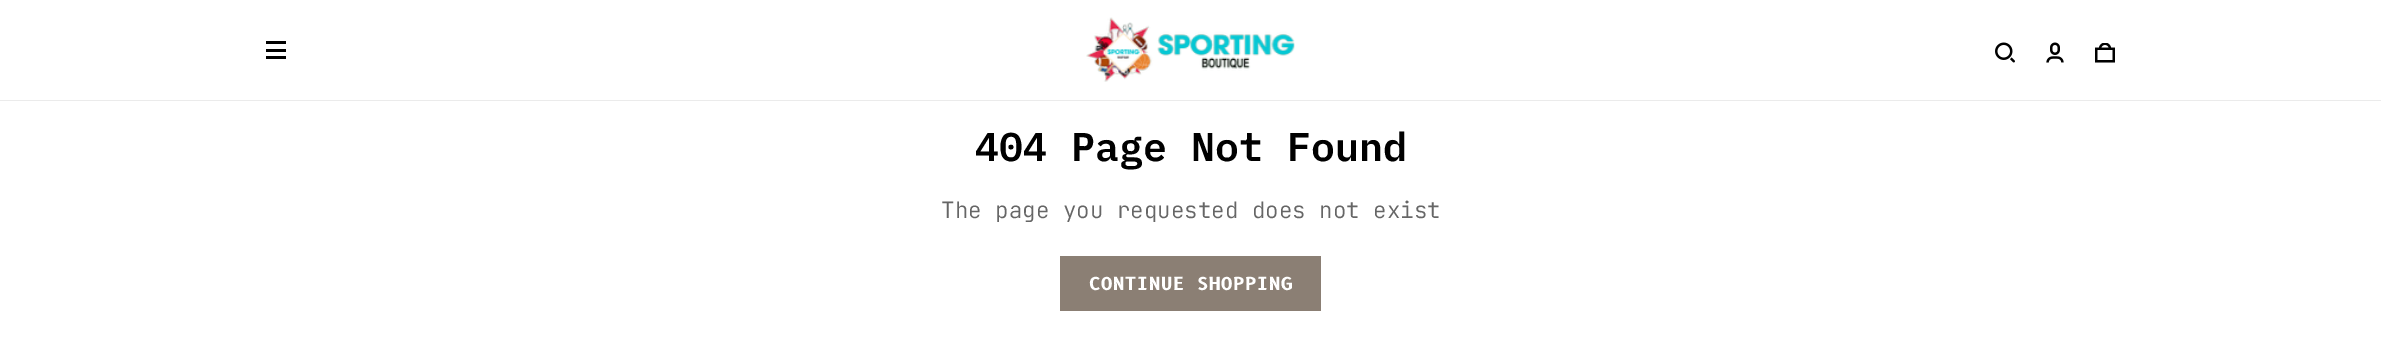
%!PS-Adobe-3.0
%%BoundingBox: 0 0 2381 340
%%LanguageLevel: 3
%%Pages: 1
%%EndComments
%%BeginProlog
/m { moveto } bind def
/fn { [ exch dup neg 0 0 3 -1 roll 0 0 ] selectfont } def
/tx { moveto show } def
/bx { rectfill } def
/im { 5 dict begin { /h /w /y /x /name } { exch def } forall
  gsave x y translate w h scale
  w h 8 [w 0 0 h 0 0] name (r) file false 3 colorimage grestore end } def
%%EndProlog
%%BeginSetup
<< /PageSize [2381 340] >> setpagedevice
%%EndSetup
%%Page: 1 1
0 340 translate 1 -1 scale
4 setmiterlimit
1 setgray
0 0 2381 340 bx
0.922 setgray
0 100 2381 1 bx
0 setgray
266 41 20 3 bx
266 49 20 3 bx
266 56 20 3 bx
(image0.raw) 1086 17 209 65 im
(image1.raw) 1995 42 20 21 im
(image2.raw) 2046 42 18 21 im
(image3.raw) 2095 43 20 20 im
/IBMPlexMono-SemiBold 40 fn
(404 Page Not Found) 975 161 tx
/JetBrainsMono-Light 22.5 fn
0.4 setgray
(The page you requested does not exist) 941 218 tx
0.545 0.498 0.455 setrgbcolor
1060 256 261 55 bx
/B612Mono-Bold 17.5 fn
1 setgray
1089 290 m 0.6 0 (CONTINUE SHOPPING) ashow
showpage
%%EOF
